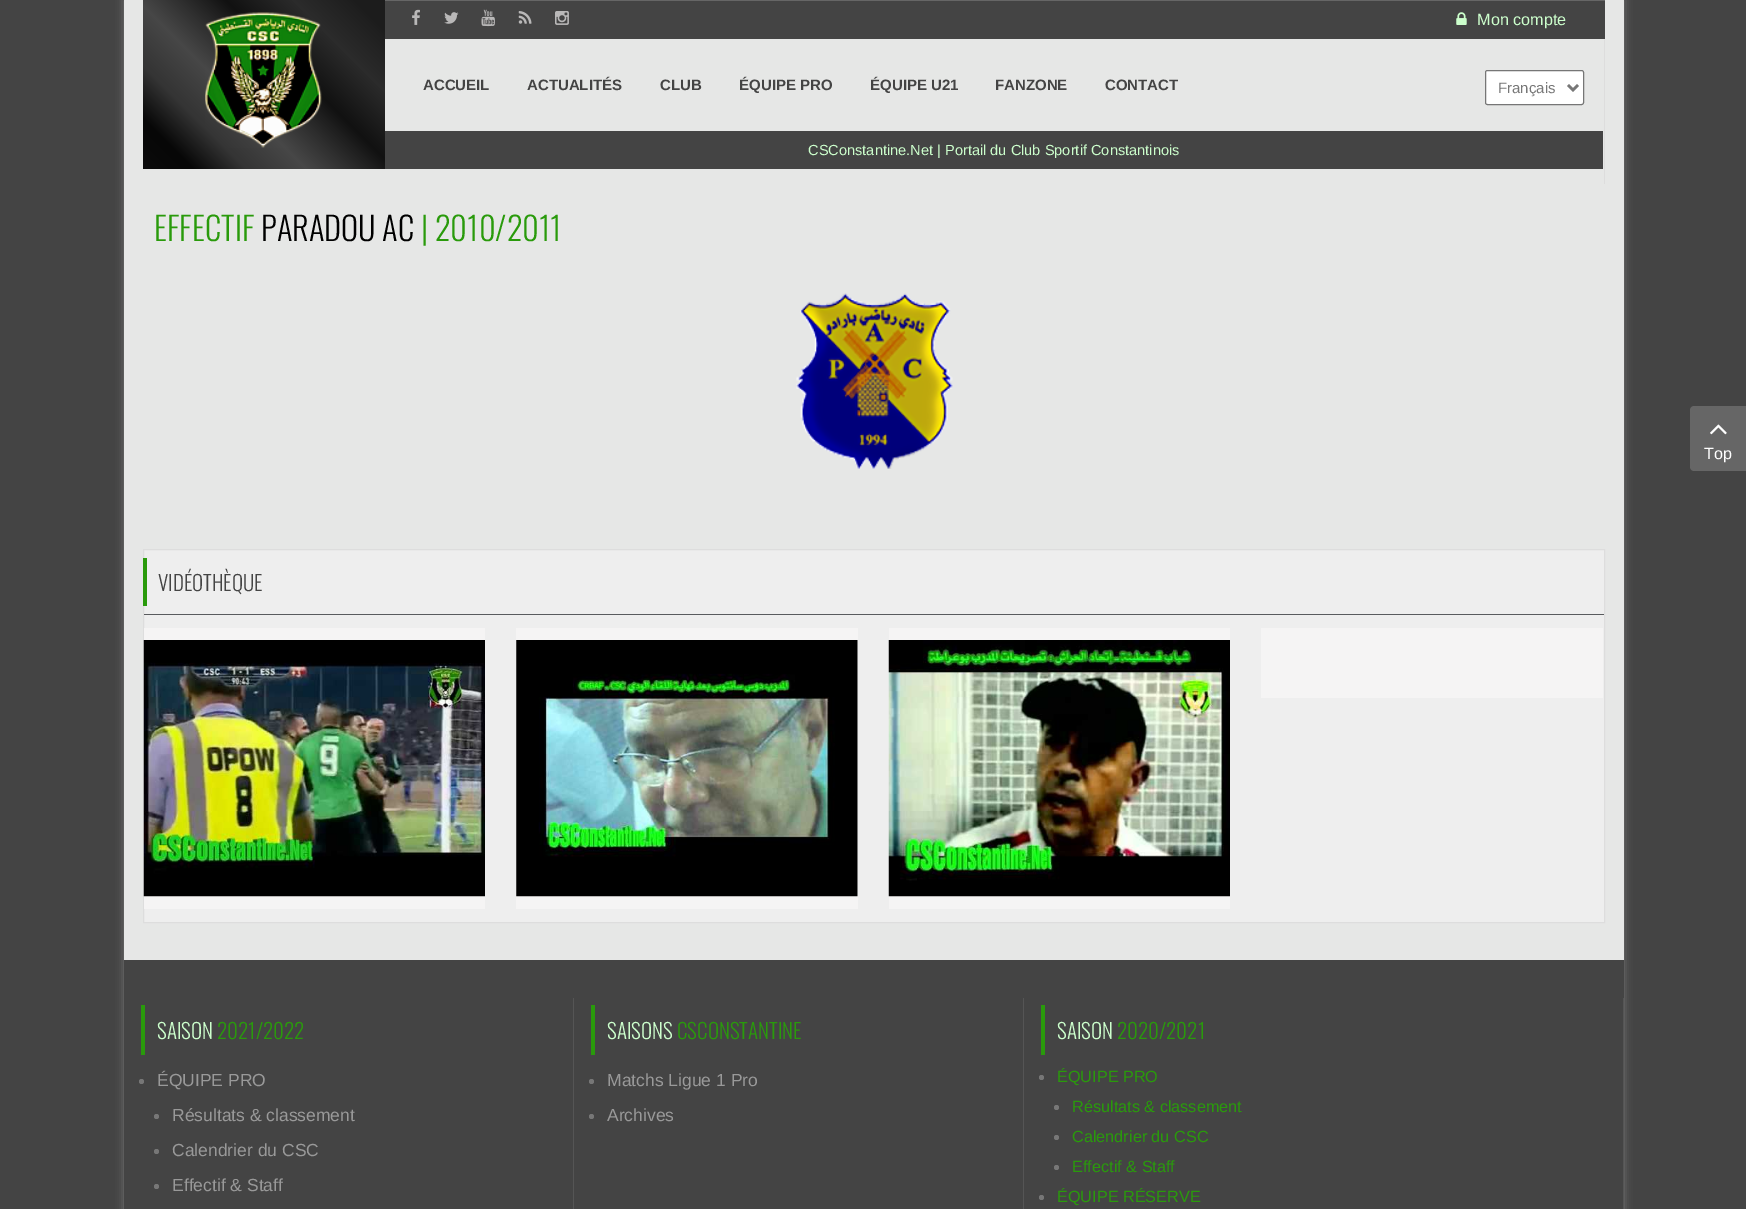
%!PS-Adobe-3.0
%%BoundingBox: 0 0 1746 1209
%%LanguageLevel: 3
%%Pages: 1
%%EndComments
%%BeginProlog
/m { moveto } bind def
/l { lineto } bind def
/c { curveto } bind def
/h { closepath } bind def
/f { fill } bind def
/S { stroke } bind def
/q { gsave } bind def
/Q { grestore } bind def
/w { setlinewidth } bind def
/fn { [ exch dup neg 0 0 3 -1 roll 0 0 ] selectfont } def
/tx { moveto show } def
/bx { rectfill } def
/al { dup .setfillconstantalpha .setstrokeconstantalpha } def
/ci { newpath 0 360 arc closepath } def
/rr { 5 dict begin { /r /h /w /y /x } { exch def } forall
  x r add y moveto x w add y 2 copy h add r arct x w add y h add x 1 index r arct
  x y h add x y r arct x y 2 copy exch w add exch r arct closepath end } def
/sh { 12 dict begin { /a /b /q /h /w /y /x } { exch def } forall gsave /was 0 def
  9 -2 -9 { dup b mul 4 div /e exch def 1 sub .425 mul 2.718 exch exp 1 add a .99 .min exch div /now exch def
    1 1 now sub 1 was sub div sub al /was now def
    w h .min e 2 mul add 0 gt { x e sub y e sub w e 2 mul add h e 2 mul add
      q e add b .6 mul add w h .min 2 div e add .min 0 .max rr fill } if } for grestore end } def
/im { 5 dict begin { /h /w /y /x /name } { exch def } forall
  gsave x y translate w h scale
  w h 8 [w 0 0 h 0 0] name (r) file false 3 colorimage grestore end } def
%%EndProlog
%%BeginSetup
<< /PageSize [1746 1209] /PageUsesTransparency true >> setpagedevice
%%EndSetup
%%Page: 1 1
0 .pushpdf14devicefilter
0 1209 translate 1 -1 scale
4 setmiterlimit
0.267 setgray
0 0 1746 1209 bx
0.467 setgray
124 0 1500 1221 0 4 1 sh
0.902 0.906 0.902 setrgbcolor
124 0 1500 960 bx
0.267 setgray
385 1 1220 38 bx
0.4 setgray
385 0 1220 1 bx
(image0.raw) 412 9 8 16 im
(image1.raw) 444 12 15 12 im
(image2.raw) 481 9 14 18 im
(image3.raw) 518 11 14 13 im
(image4.raw) 555 11 14 14 im
(image5.raw) 1456 12 11 13 im
/LiberationSans-Regular 16.25 fn
0.8 1 0.8 setrgbcolor
(Mon compte) 1477 25 tx
0.867 setgray
1604 39 1 145 bx
q 143 0 m 385 0 l 385 169 l 143 169 l h clip newpath
<< /ShadingType 2 /ColorSpace /DeviceRGB /Coords [158 185 369 -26] /Extend [true true] /Function << /FunctionType 3 /Domain [0 1] /Functions [<< /FunctionType 2 /Domain [0 1] /C0 [0.047 0.047 0.047] /C1 [0.027 0.027 0.027] /N 1 >> << /FunctionType 2 /Domain [0 1] /C0 [0.027 0.027 0.027] /C1 [0.208 0.208 0.208] /N 1 >> << /FunctionType 2 /Domain [0 1] /C0 [0.208 0.208 0.208] /C1 [0.278 0.278 0.278] /N 1 >> << /FunctionType 2 /Domain [0 1] /C0 [0.278 0.278 0.278] /C1 [0.173 0.173 0.173] /N 1 >> << /FunctionType 2 /Domain [0 1] /C0 [0.173 0.173 0.173] /C1 [0.067 0.067 0.067] /N 1 >> << /FunctionType 2 /Domain [0 1] /C0 [0.067 0.067 0.067] /C1 [0.169 0.169 0.169] /N 1 >> << /FunctionType 2 /Domain [0 1] /C0 [0.169 0.169 0.169] /C1 [0.11 0.11 0.11] /N 1 >> << /FunctionType 2 /Domain [0 1] /C0 [0.11 0.11 0.11] /C1 [0.11 0.11 0.11] /N 1 >>] /Bounds [0.12 0.25 0.39 0.5 0.6 0.76 0.91] /Encode [0 1 0 1 0 1 0 1 0 1 0 1 0 1 0 1] >> >> shfill Q
(image6.raw) 205 12 117 136 im
/LiberationSans-Bold 15 fn
0.267 setgray
(ACCUEIL) 423 90 tx
(ACTUALITÉS) 527 90 tx
(CLUB) 660 90 tx
(ÉQUIPE PRO) 739 90 tx
(ÉQUIPE U21) 870 90 tx
(FANZONE) 995 90 tx
(CONTACT) 1105 90 tx
1 setgray
1485.5 70.5 98 34 2 rr q f Q
0.463 setgray
S
0.467 setgray
2.5 w
1568 85 m 1573 90 l 1578 85 l S
/LiberationSans-Regular 15 fn
(Français) 1498 93 tx
0.267 setgray
385 131 1218 38 bx
/LiberationSans-Regular 14.6 fn
0.8 1 0.8 setrgbcolor
(CSConstantine.Net | Portail du Club Sportif Constantinois) 808 155 tx
/Oswald-Light 32.5 fn
0.161 0.604 0.043 setrgbcolor
(EFFECTIF) 154 241 tx
0 setgray
(PARADOU AC) 261 241 tx
0.161 0.604 0.043 setrgbcolor
(| 2010/2011) 421 241 tx
(image7.raw) 796 293 157 176 im
0.933 setgray
143.5 549.5 m 1604.5 549.5 l 1604.5 922.5 l 143.5 922.5 l h q f Q
0.867 setgray
1 w
S
0.161 0.604 0.043 setrgbcolor
143 558 4 48 bx
/Oswald-Light 21 fn
0.267 setgray
(VIDÉOTHÈQUE) 158 591 tx
0.349 0.357 0.369 setrgbcolor
144 614 1460 1 bx
0.961 0.957 0.957 setrgbcolor
144 628 341 281 bx
(image8.raw) 143 640 342 257 im
516 628 342 281 bx
(image9.raw) 516 640 342 257 im
889 628 341 281 bx
(image10.raw) 888 640 342 257 im
1261 628 342 70 bx
0.267 setgray
124 960 1500 249 bx
0.333 setgray
573 998 1 211 bx
0.161 0.604 0.043 setrgbcolor
141 1005 4 50 bx
0.8 1 0.8 setrgbcolor
(SAISON) 157 1039 tx
0.161 0.604 0.043 setrgbcolor
(2021/2022) 217 1039 tx
0.467 setgray
141.5 1081.5 2.5 ci f
/LiberationSans-Regular 17.5 fn
0.6 setgray
(ÉQUIPE PRO) 157 1086 tx
0.467 setgray
156.5 1116.5 2.5 ci f
0.6 setgray
(Résultats & classement) 172 1121 tx
0.467 setgray
156.5 1151.5 2.5 ci f
0.6 setgray
(Calendrier du CSC) 172 1156 tx
0.467 setgray
156.5 1186.5 2.5 ci f
0.6 setgray
(Effectif & Staff) 172 1191 tx
0.333 setgray
1023 998 1 211 bx
0.161 0.604 0.043 setrgbcolor
591 1005 4 50 bx
/Oswald-Light 21 fn
0.8 1 0.8 setrgbcolor
(SAISONS) 607 1039 tx
0.161 0.604 0.043 setrgbcolor
(CSCONSTANTINE) 677 1039 tx
0.467 setgray
591.5 1081.5 2.5 ci f
/LiberationSans-Regular 17.5 fn
0.6 setgray
(Matchs Ligue 1 Pro) 607 1086 tx
0.467 setgray
591.5 1116.5 2.5 ci f
0.6 setgray
(Archives) 607 1121 tx
0.333 setgray
1623 998 1 211 bx
0.161 0.604 0.043 setrgbcolor
1041 1005 4 50 bx
/Oswald-Light 21 fn
0.8 1 0.8 setrgbcolor
(SAISON) 1057 1039 tx
0.161 0.604 0.043 setrgbcolor
(2020/2021) 1117 1039 tx
0.467 setgray
1041.5 1077.5 2.5 ci f
/LiberationSans-Regular 16.25 fn
0.161 0.604 0.043 setrgbcolor
(ÉQUIPE PRO) 1057 1082 tx
0.467 setgray
1056.5 1107.5 2.5 ci f
0.161 0.604 0.043 setrgbcolor
(Résultats & classement) 1072 1112 tx
0.467 setgray
1056.5 1137.5 2.5 ci f
0.161 0.604 0.043 setrgbcolor
(Calendrier du CSC) 1072 1142 tx
0.467 setgray
1056.5 1167.5 2.5 ci f
0.161 0.604 0.043 setrgbcolor
(Effectif & Staff) 1072 1172 tx
0.467 setgray
1041.5 1197.5 2.5 ci f
0.161 0.604 0.043 setrgbcolor
(ÉQUIPE RÉSERVE) 1057 1202 tx
0.4 setgray
1694 406 m 1746 406 l 1746 471 l 1694 471 l 1692 471 1690 469 1690 467 c 1690 410 l 1690 408 1692 406 1694 406 c h f
(image11.raw) 1710 424 17 11 im
1 setgray
(Top) 1704 459 tx
.poppdf14devicefilter showpage
%%EOF
